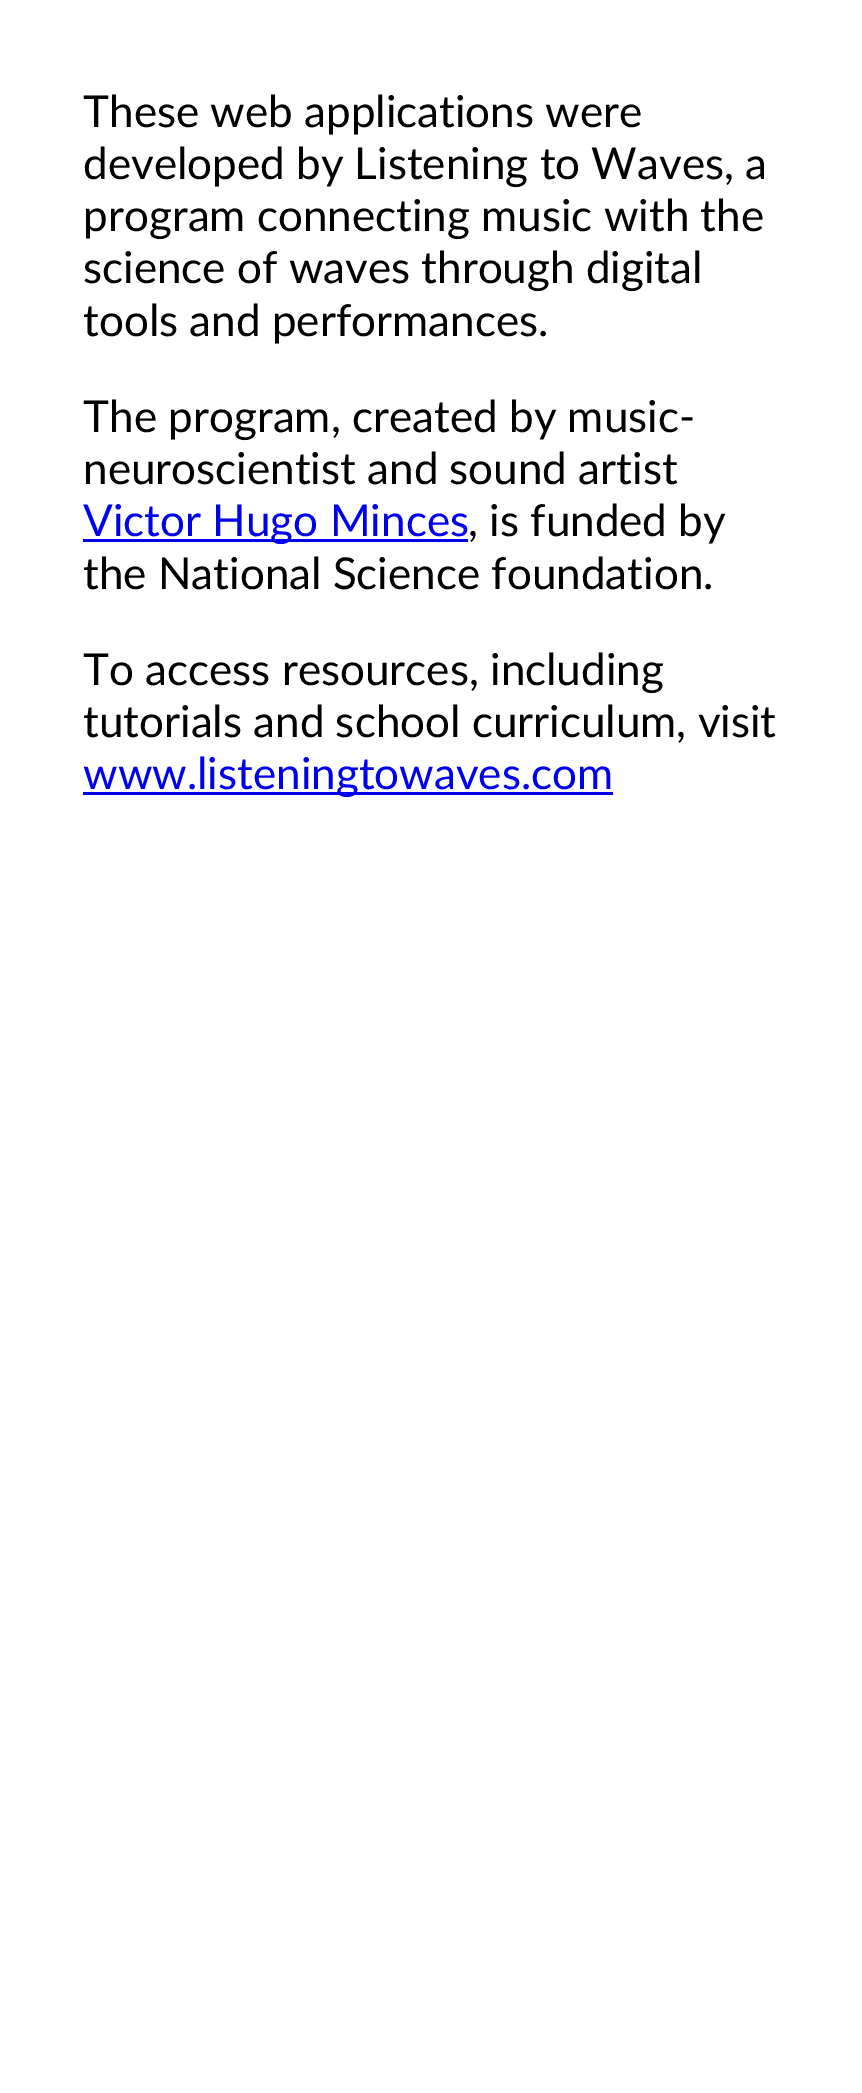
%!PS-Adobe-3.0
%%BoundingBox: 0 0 862 2093
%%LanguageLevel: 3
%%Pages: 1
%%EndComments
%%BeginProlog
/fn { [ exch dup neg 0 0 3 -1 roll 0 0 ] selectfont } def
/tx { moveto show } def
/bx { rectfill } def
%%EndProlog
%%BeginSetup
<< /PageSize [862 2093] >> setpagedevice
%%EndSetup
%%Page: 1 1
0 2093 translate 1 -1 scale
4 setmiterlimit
1 setgray
0 0 862 2093 bx
/Lato-Regular 44 fn
0 setgray
(These web applications were) 83 127 tx
(developed by Listening to Waves, a) 83 179 tx
(program connecting music with the) 83 231 tx
(science of waves through digital) 83 283 tx
(tools and performances.) 83 336 tx
(The program, created by music-) 83 432 tx
(neuroscientist and sound artist) 83 484 tx
0 0 0.933 setrgbcolor
83 539 385 3 bx
(Victor Hugo Minces) 83 536 tx
0 setgray
(, is funded by) 468 536 tx
(the National Science foundation.) 83 589 tx
(To access resources, including) 83 685 tx
(tutorials and school curriculum, visit) 83 737 tx
0 0 0.933 setrgbcolor
83 792 530 3 bx
(www.listeningtowaves.com) 83 789 tx
showpage
%%EOF
